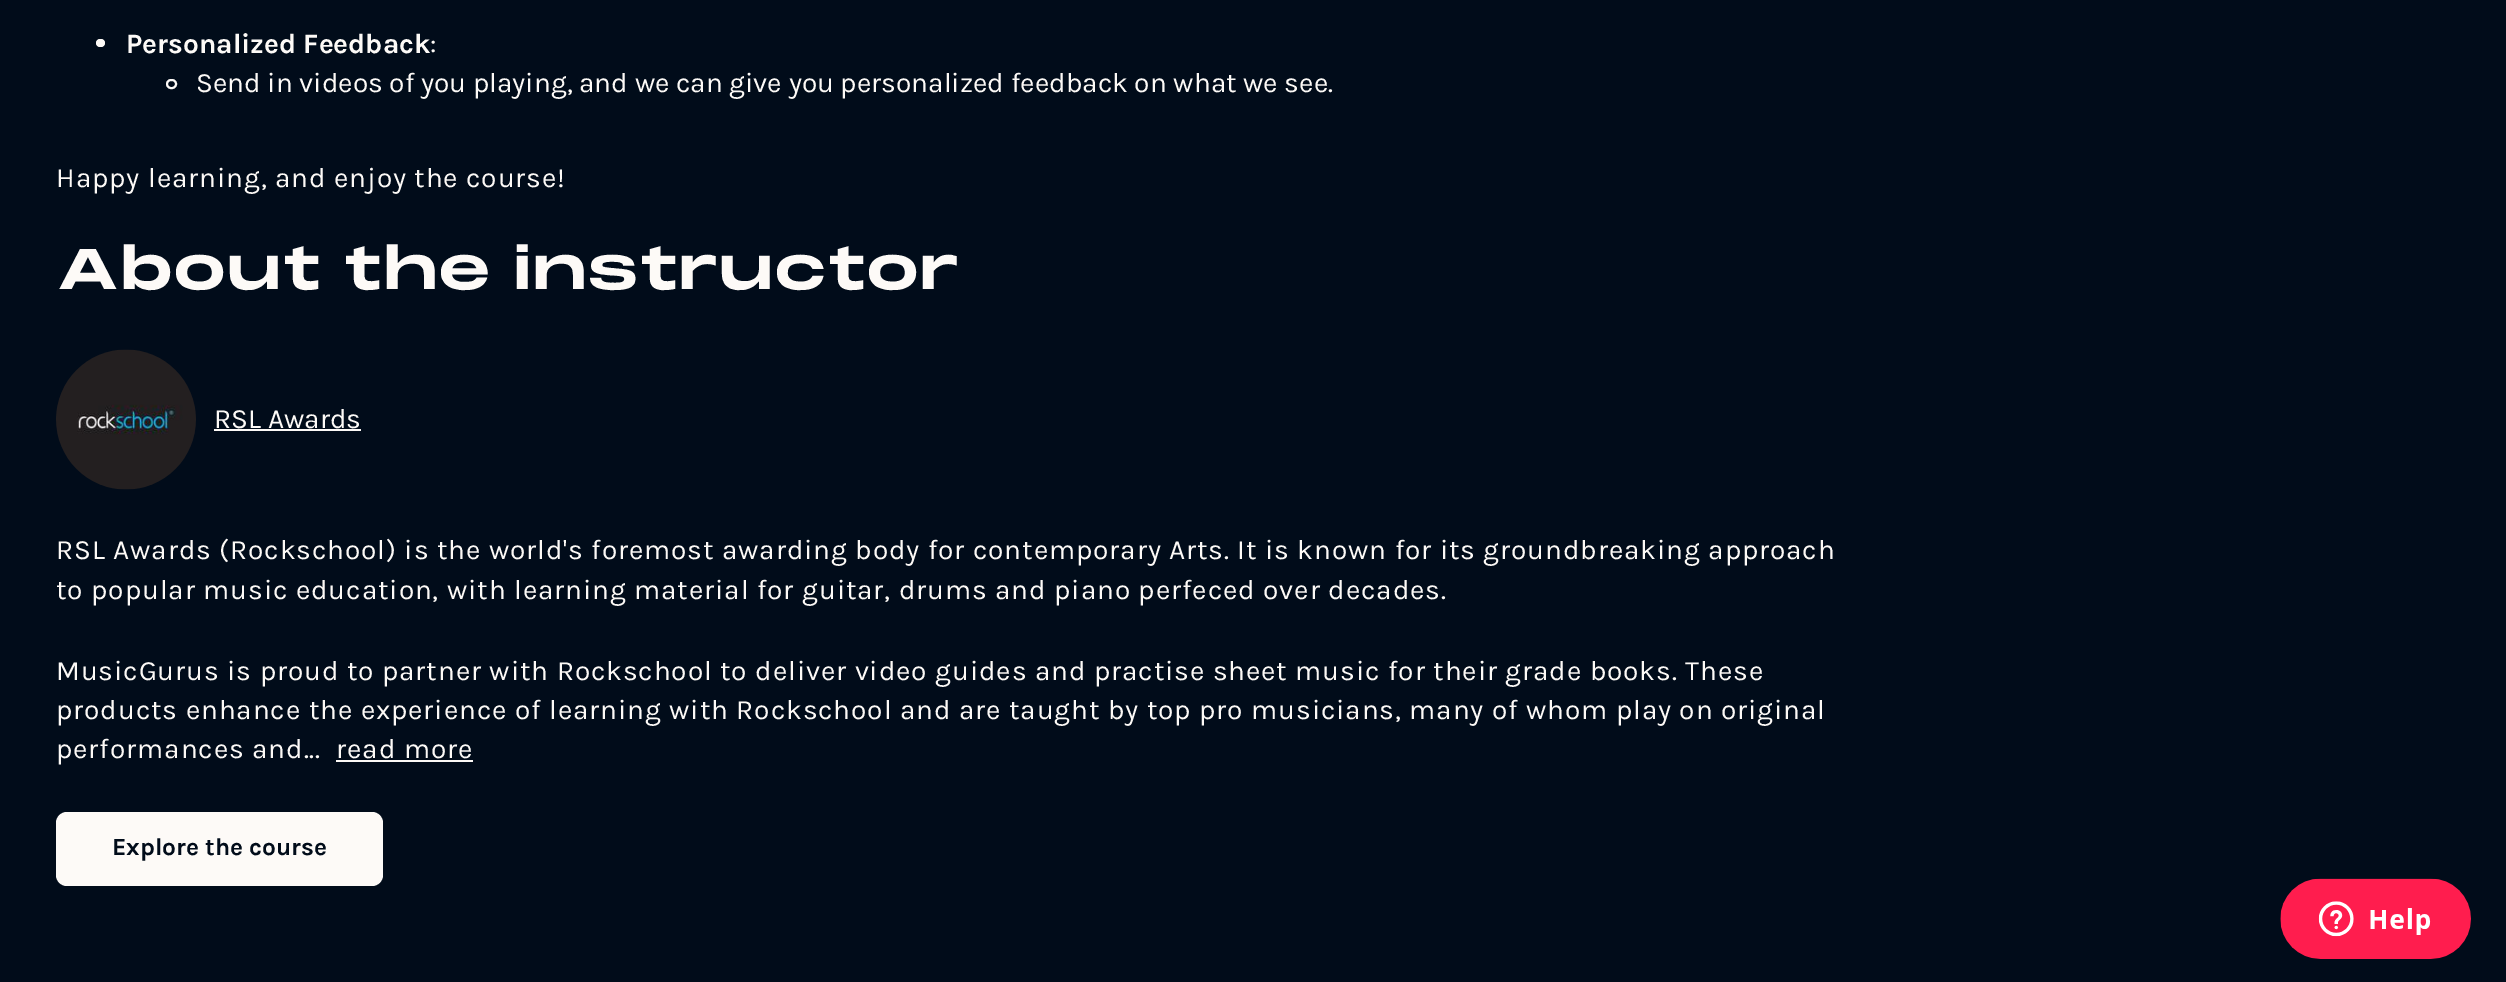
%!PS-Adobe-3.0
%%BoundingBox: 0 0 2506 982
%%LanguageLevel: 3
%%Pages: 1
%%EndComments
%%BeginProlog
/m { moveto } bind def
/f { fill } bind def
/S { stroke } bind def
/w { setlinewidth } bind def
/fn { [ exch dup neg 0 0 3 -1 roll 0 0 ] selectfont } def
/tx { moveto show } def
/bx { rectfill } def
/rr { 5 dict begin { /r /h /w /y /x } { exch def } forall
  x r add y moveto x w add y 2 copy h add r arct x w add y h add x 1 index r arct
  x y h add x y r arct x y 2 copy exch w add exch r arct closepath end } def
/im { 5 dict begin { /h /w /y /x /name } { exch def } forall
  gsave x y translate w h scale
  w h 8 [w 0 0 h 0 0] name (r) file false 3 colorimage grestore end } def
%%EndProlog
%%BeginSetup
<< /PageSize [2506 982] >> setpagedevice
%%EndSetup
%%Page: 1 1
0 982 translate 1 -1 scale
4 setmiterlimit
0.004 0.047 0.102 setrgbcolor
0 0 2506 982 bx
0.992 0.98 0.969 setrgbcolor
96 39 9 8 4 rr f
/Karla-Bold 28 fn
(Personalized Feedback) 126 53 tx
/Karla-Regular 28 fn
(:) 430 53 tx
2 w
167 80 9 8 4 rr S
(Send in videos of you playing, and we can give you personalized feedback on what we see.) 196 92 tx
56 187 m 0.88 0 (Happy learning, and enjoy the course!) ashow
/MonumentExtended-Bold 56 fn
(About the instructor) 56 289 tx
(image0.raw) 56 349 140 141 im
/Karla-Regular 28 fn
(RSL Awards) 214 428 tx
214 429 147 2 bx
56 559 m 0.88 0 (RSL Awards \(Rockschool\) is the world's foremost awarding body for contemporary Arts. It is known for its groundbreaking approach) ashow
56 599 m 0.88 0 (to popular music education, with learning material for guitar, drums and piano perfeced over decades.) ashow
56 680 m 0.88 0 (MusicGurus is proud to partner with Rockschool to deliver video guides and practise sheet music for their grade books. These) ashow
56 719 m 0.88 0 (products enhance the experience of learning with Rockschool and are taught by top pro musicians, many of whom play on original) ashow
56 758 m 0.88 0 (performances and...) ashow
336 758 m 0.88 0 (read more) ashow
336 760 137 2 bx
56 812 327 74 11 rr f
/Karla-Bold 24.5 fn
0.004 0.047 0.102 setrgbcolor
(Explore the course) 112 855 tx
(image1.raw) 2280 878 191 81 im
showpage
%%EOF
